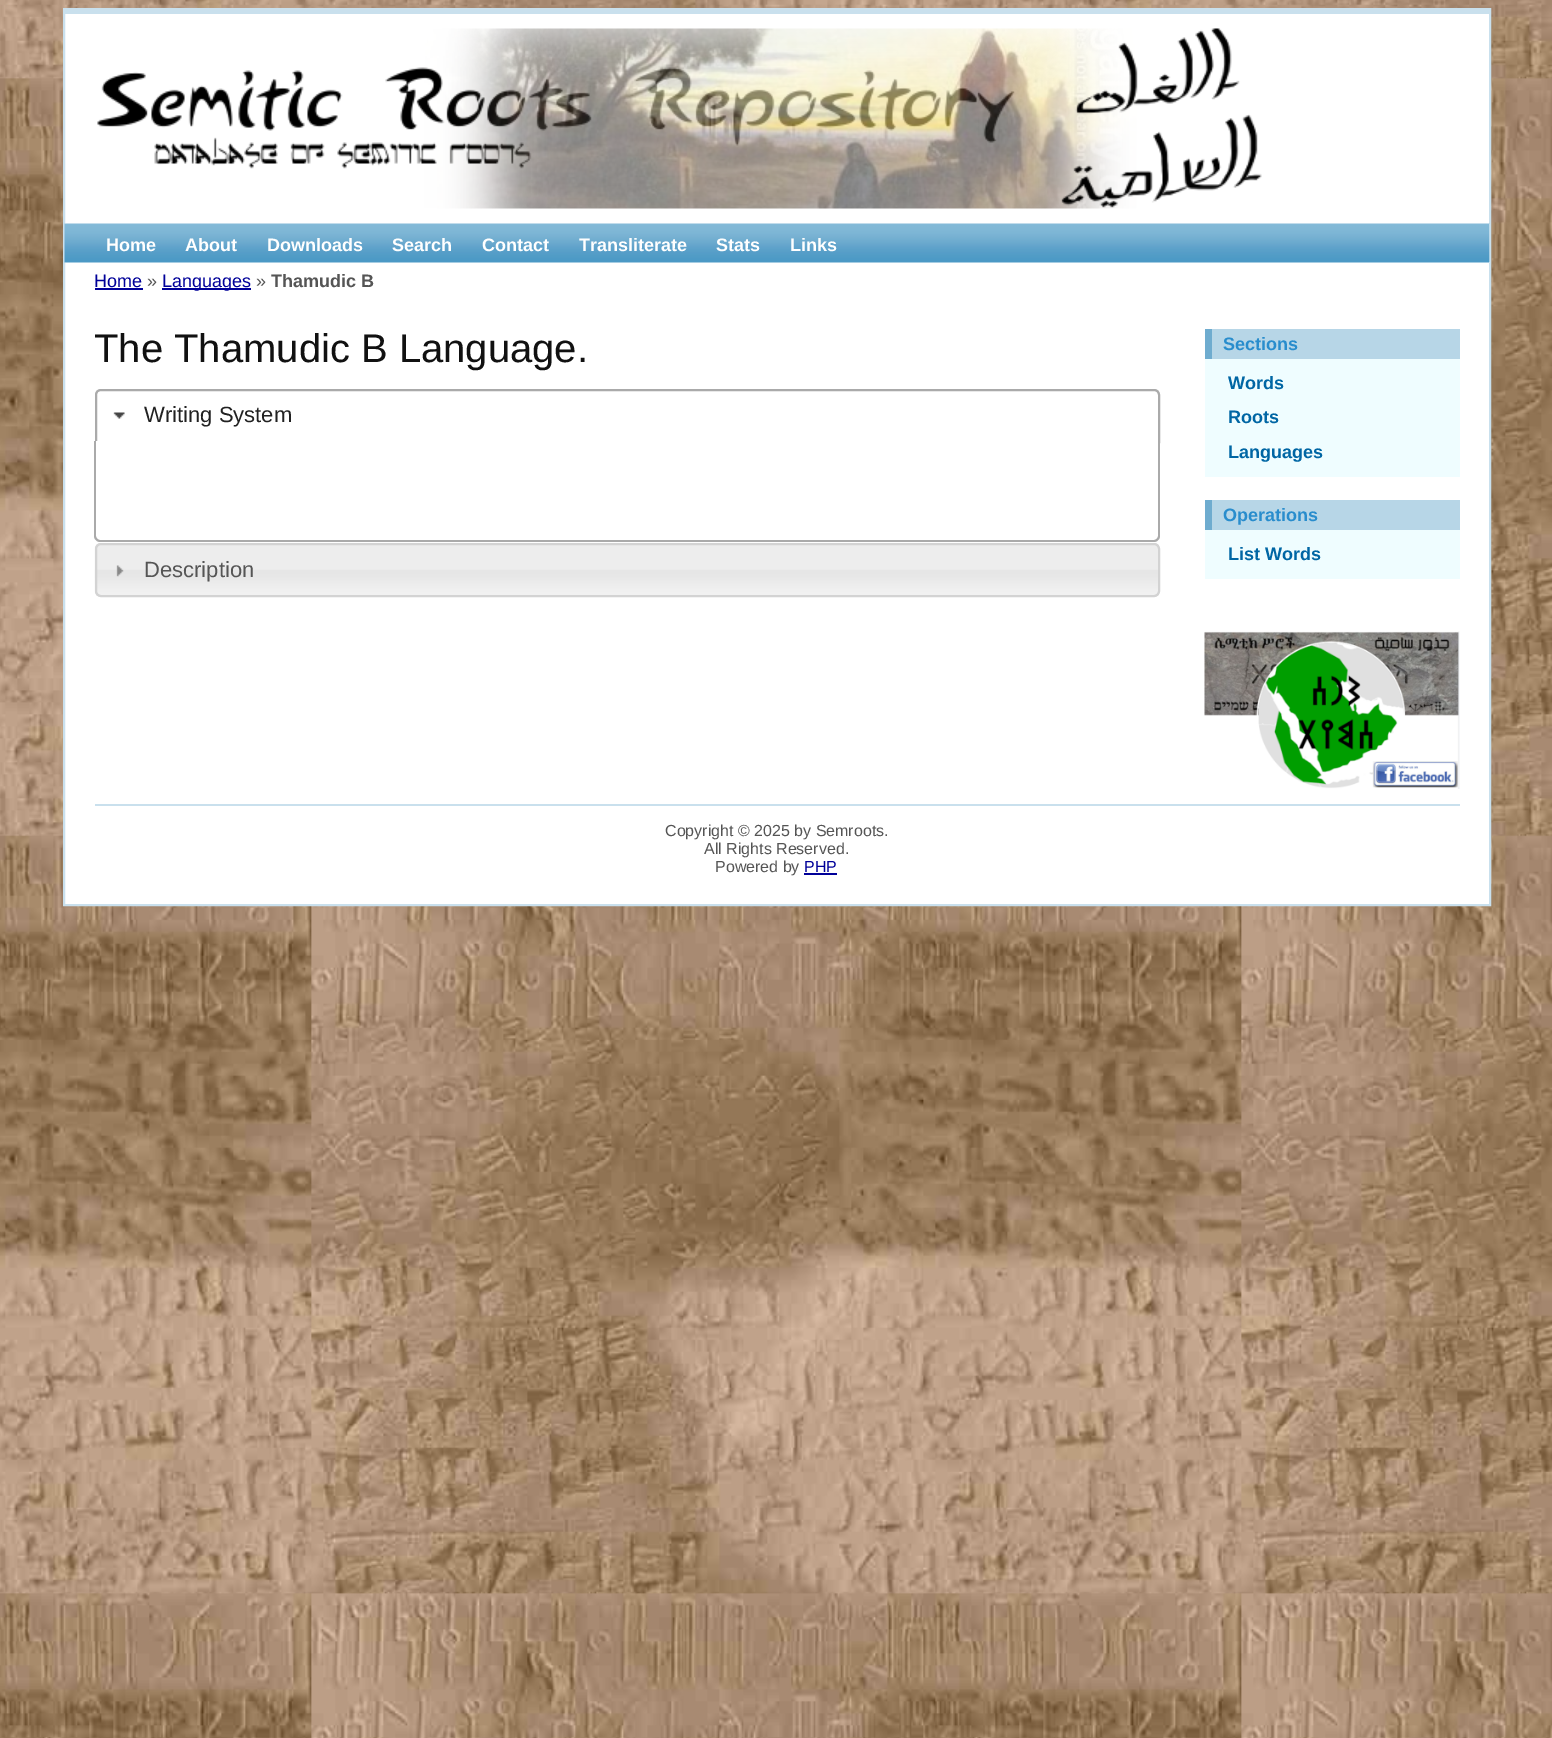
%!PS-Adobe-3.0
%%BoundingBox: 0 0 1552 1738
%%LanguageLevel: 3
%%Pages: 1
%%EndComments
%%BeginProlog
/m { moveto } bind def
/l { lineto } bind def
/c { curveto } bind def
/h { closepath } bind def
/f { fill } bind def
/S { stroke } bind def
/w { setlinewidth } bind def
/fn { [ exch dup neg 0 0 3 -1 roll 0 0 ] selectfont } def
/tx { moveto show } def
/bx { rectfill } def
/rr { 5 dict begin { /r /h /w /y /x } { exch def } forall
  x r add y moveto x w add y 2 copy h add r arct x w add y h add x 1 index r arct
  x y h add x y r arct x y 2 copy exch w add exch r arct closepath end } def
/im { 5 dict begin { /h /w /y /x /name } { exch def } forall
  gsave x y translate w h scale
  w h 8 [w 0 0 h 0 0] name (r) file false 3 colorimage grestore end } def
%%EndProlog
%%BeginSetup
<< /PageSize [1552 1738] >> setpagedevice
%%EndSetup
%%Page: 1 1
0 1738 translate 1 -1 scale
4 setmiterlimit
1 setgray
0 0 1552 1738 bx
(image0.raw) 0 0 1552 1738 im
65 14 1424 890 bx
0.788 0.878 0.929 setrgbcolor
2 w
64 9 1426 896 rectstroke
65 10 1425 4 bx
(image1.raw) 97 28 1165 181 im
1 setgray
1489 224 1 39 bx
(image2.raw) 64 223 1426 40 im
/LiberationSans-Bold 18 fn
(Home) 106 251 tx
(About) 185 251 tx
(Downloads) 267 251 tx
(Search) 392 251 tx
(Contact) 482 251 tx
(Transliterate) 579 251 tx
(Stats) 716 251 tx
(Links) 790 251 tx
/LiberationSans-Regular 18 fn
0 0 0.6 setrgbcolor
(Home) 94 287 tx
95 288 48 2 bx
0.333 setgray
(») 147 287 tx
0 0 0.6 setrgbcolor
162 288 89 2 bx
(Languages) 162 287 tx
0.333 setgray
(») 256 287 tx
/LiberationSans-Bold 18 fn
(Thamudic B) 271 287 tx
/LiberationSans-Regular 40 fn
0.067 setgray
(The Thamudic B Language.) 94 362 tx
0.667 setgray
101 390 m 1154 390 l 1157 390 1159 392 1159 395 c 1159 442 l 96 442 l 96 395 l 96 392 98 390 101 390 c h S
(image3.raw) 113 412 12 7 im
/LiberationSans-Regular 22 fn
0.129 setgray
(Writing System) 144 422 tx
1 setgray
95 441 m 1160 441 l 1160 536 l 1160 539.5 1157.5 542 1154 542 c 101 542 l 97.5 542 95 539.5 95 536 c h f
0.667 setgray
94 441 m 1160 441 l 1160 536 l 1160 539 1157 542 1154 542 c 100 542 l 97 542 94 539 94 536 c h 96 441 m 1158 441 l 1158 536 l 1158 538 1156 540 1154 540 c 100 540 l 98 540 96 538 96 536 c h eofill
(image4.raw) 94 543 1065 54 im
0.827 setgray
96 544 1063 52 5 rr S
(image5.raw) 116 565 8 12 im
0.333 setgray
(Description) 144 577 tx
0.718 0.839 0.906 setrgbcolor
1212 329 248 30 bx
0.435 0.675 0.812 setrgbcolor
1205 329 7 30 bx
/LiberationSans-Bold 18 fn
0.161 0.553 0.804 setrgbcolor
(Sections) 1223 350 tx
0.937 0.992 1 setrgbcolor
1205 359 255 118 bx
0 0.4 0.643 setrgbcolor
(Words) 1228 389 tx
(Roots) 1228 423 tx
(Languages) 1228 458 tx
0.718 0.839 0.906 setrgbcolor
1212 500 248 30 bx
0.435 0.675 0.812 setrgbcolor
1205 500 7 30 bx
0.161 0.553 0.804 setrgbcolor
(Operations) 1223 521 tx
0.937 0.992 1 setrgbcolor
1205 530 255 49 bx
0 0.4 0.643 setrgbcolor
(List Words) 1228 560 tx
(image6.raw) 1204 631 256 158 im
0.788 0.878 0.929 setrgbcolor
95 804 1365 2 bx
/LiberationSans-Regular 16 fn
0.333 setgray
(Copyright © 2025 by Semroots.) 665 836 tx
(All Rights Reserved.) 704 854 tx
(Powered by) 715 872 tx
0 0 0.6 setrgbcolor
(PHP) 804 872 tx
804 873 33 2 bx
showpage
%%EOF
